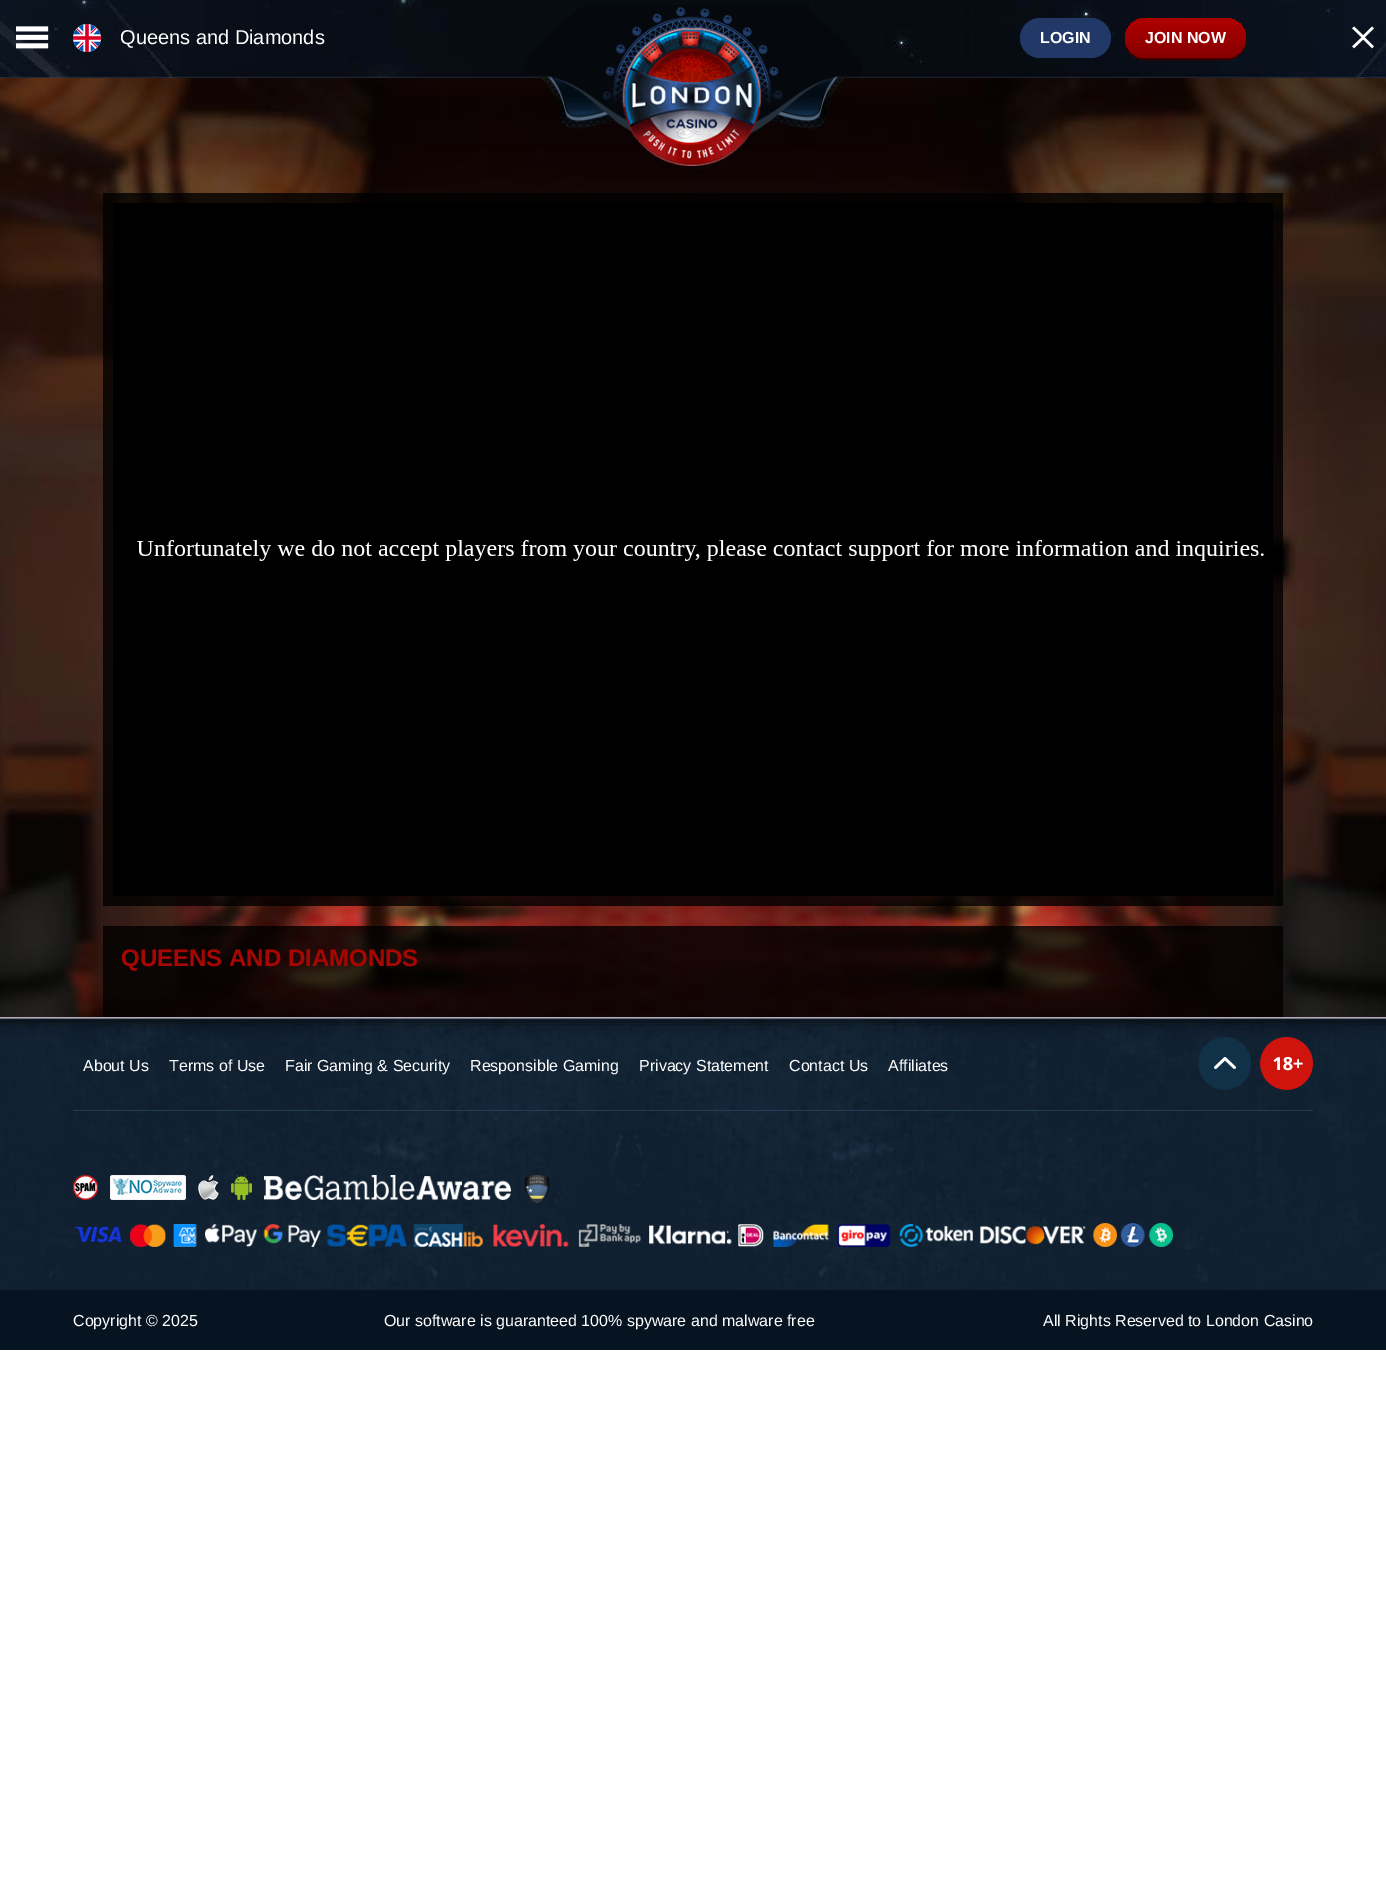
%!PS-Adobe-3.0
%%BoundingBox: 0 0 1386 1904
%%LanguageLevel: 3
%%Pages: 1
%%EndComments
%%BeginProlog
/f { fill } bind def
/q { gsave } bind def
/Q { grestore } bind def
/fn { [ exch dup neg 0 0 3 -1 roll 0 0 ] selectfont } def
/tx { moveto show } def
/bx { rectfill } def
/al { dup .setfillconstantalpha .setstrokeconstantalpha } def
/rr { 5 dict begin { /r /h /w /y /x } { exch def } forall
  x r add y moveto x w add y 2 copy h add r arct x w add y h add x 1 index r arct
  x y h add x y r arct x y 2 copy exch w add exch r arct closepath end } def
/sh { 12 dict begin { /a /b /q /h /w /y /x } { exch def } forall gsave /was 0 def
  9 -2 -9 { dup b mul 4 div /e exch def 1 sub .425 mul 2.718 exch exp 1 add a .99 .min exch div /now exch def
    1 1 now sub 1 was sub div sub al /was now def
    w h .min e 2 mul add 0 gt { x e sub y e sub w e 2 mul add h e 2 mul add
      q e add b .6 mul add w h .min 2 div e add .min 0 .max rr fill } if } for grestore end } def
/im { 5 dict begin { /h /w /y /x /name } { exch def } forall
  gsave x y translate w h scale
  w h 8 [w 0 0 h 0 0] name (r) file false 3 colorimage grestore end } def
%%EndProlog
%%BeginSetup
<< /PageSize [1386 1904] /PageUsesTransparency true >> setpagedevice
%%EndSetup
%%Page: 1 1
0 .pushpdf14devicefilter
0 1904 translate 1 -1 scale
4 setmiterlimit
1 setgray
0 0 1386 1904 bx
(image0.raw) 0 78 1386 939 im
(image2.raw) 0 0 1386 78 im
/LiberationSans-Regular 20 fn
(Queens and Diamonds) 120 44 tx
(image1.raw) 1352 26 22 23 im
(image3.raw) 523 5 340 139 im
(image4.raw) 603 7 180 159 im
(image5.raw) 16 26 33 23 im
(image6.raw) 73 24 28 28 im
0.133 0.22 0.404 setrgbcolor
1020 18 91 40 20 rr f
/LiberationSans-Bold 16 fn
1 setgray
(LOGIN) 1040 43 tx
0.267 0 0 setrgbcolor
1125 20 121 40 20 0.5 1 sh
q 1125 18 121 40 20 rr clip newpath
<< /ShadingType 2 /ColorSpace /DeviceRGB /Coords [1186 18 1186 58] /Extend [true true] /Function << /FunctionType 3 /Domain [0 1] /Functions [<< /FunctionType 2 /Domain [0 1] /C0 [0.659 0.004 0.004] /C1 [0.675 0 0] /N 1 >> << /FunctionType 2 /Domain [0 1] /C0 [0.675 0 0] /C1 [0.667 0 0] /N 1 >> << /FunctionType 2 /Domain [0 1] /C0 [0.667 0 0] /C1 [0.525 0 0] /N 1 >>] /Bounds [0.03 0.13] /Encode [0 1 0 1 0 1] >> >> shfill Q
1 setgray
(JOIN NOW) 1145 43 tx
0.8 al
0 setgray
103 193 1180 713 bx
1 al
(image7.raw) 113 203 1160 675 im
113 878 1160 18 bx
0.8 al
103 926 1180 91 bx
/LiberationSans-Bold 24 fn
1 al
0.659 0.024 0.008 setrgbcolor
(QUEENS AND DIAMONDS) 121 966 tx
(image8.raw) 0 1018 1386 272 im
0.69 0.678 0.753 setrgbcolor
0 1017 1386 1 bx
0.137 0.235 0.329 setrgbcolor
73 1110 1240 1 bx
/LiberationSans-Regular 16 fn
1 setgray
(About Us) 83 1071 tx
(Terms of Use) 169 1071 tx
(Fair Gaming & Security) 285 1071 tx
(Responsible Gaming) 470 1071 tx
(Privacy Statement) 639 1071 tx
(Contact Us) 789 1071 tx
(Affiliates) 888 1071 tx
(image9.raw) 1198 1037 53 53 im
(image10.raw) 1260 1037 53 53 im
(image11.raw) 73 1175 25 25 im
(image12.raw) 110 1175 76 25 im
(image13.raw) 198 1175 21 25 im
(image14.raw) 231 1175 21 25 im
(image15.raw) 264 1175 247 25 im
(image16.raw) 524 1175 26 28 im
(image17.raw) 74 1223 1099 24 im
0.024 0.078 0.133 setrgbcolor
0 1290 1386 60 bx
1 setgray
(Copyright © 2025) 73 1326 tx
(Our software is guaranteed 100% spyware and malware free) 384 1326 tx
(All Rights Reserved to London Casino) 1043 1326 tx
.poppdf14devicefilter showpage
%%EOF
